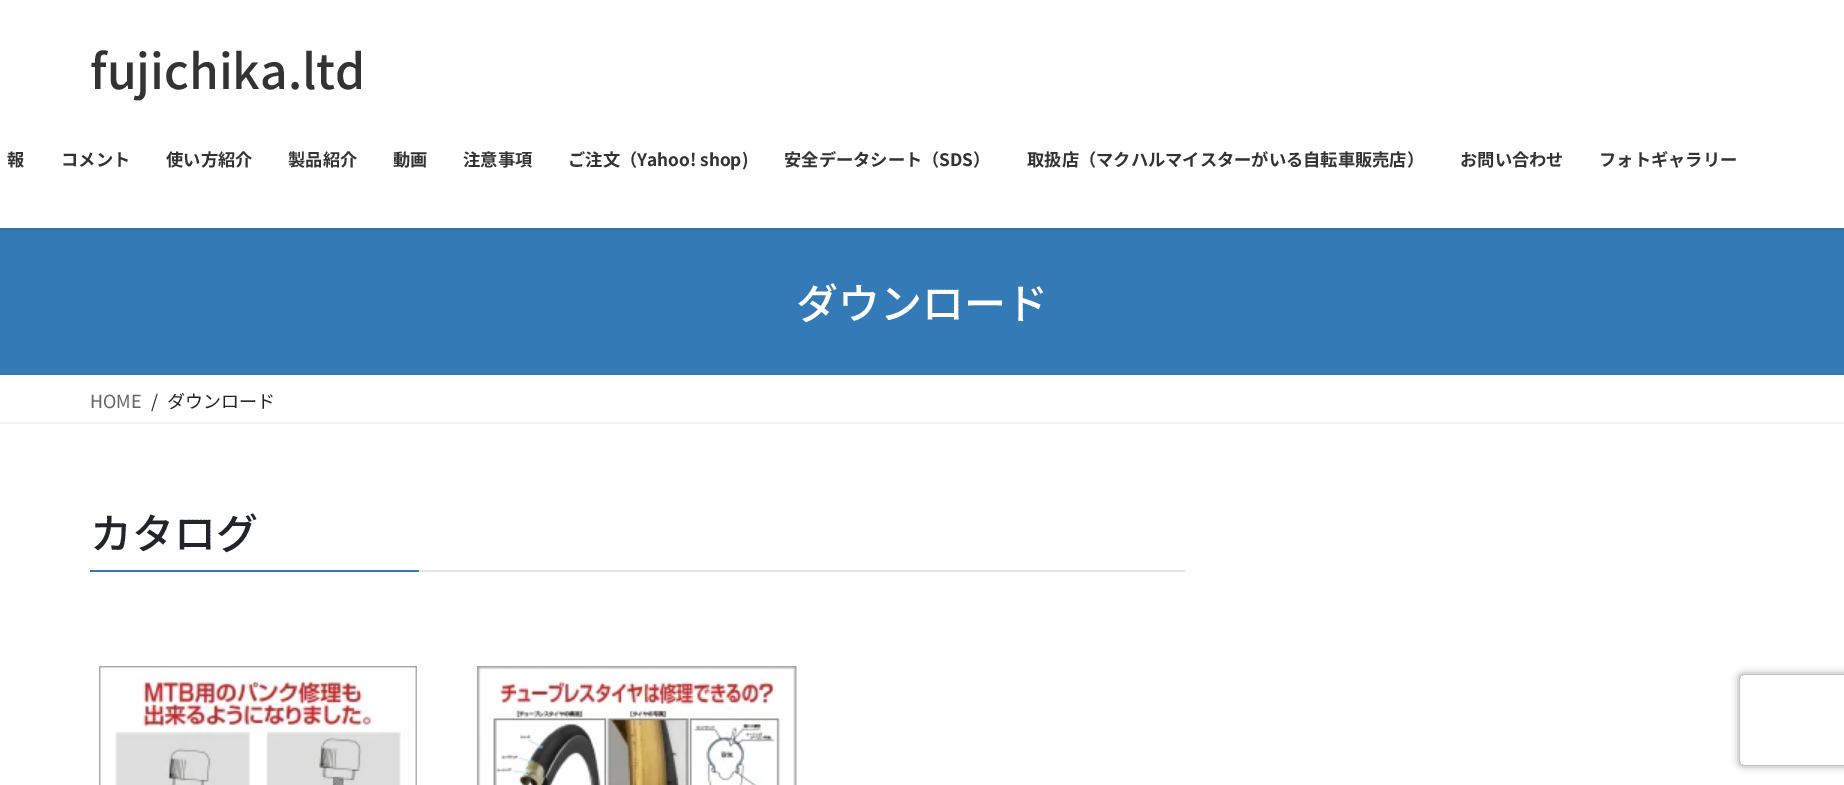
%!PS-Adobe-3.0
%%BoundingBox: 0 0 1844 785
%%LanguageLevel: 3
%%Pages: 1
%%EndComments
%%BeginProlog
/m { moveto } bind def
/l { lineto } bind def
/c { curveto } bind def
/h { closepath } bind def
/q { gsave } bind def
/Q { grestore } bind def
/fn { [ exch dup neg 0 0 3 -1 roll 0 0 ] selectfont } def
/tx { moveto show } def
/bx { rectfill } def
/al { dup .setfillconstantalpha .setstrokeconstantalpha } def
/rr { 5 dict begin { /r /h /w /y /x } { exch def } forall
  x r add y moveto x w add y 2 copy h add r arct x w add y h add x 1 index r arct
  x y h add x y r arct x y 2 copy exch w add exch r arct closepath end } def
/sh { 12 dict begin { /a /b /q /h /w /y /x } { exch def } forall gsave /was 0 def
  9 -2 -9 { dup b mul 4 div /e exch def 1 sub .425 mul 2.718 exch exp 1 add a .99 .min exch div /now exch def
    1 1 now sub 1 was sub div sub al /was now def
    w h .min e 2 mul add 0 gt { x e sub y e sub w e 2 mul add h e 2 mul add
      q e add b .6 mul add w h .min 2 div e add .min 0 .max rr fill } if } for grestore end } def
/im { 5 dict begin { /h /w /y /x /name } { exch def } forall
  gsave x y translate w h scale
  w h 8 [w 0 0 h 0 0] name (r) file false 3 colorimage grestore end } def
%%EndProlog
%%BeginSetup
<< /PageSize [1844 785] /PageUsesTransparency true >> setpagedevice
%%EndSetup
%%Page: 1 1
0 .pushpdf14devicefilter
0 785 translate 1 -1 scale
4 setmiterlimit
1 setgray
0 0 1844 785 bx
0.2 0.478 0.718 setrgbcolor
0 228 1844 147 bx
q
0 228 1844 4 rectclip
0 setgray
0 2 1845 228 0 2 0.1 sh
Q
/NotoSansJP-Medium 48 fn
0.2 setgray
(fujichika.ltd) 90 89 tx
/NotoSansJP-Bold 17.25 fn
(報) 7 166 tx
(コメント) 61 166 tx
(使い方紹介) 166 166 tx
(製品紹介) 288 166 tx
(動画) 393 166 tx
(注意事項) 463 166 tx
(ご注文（Yahoo! shop\)) 568 166 tx
(安全データシート（SDS）) 784 166 tx
(取扱店（マクハルマイスターがいる自転車販売店）) 1027 166 tx
(お問い合わせ) 1460 166 tx
(フォトギャラリー) 1599 166 tx
/NotoSansJP-Medium 42 fn
1 setgray
(ダウンロード) 796 319 tx
0.949 setgray
0 422 1844 2 bx
/NotoSansJP-Regular 18 fn
0.4 setgray
(HOME) 90 408 tx
0.129 0.145 0.161 setrgbcolor
(/) 151 408 tx
(ダウンロード) 167 408 tx
0.902 setgray
419 570 766 2 bx
/NotoSansJP-Medium 42 fn
0.129 0.145 0.161 setrgbcolor
(カタログ) 90 549 tx
0.2 0.478 0.718 setrgbcolor
90 570 329 2 bx
(image0.raw) 99 666 318 119 im
(image1.raw) 477 666 320 119 im
q
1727 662 m 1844 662 l 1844 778 l 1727 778 l h 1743 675 m 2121 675 l 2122.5 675 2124 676.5 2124 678 c 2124 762 l 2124 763.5 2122.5 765 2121 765 c 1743 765 l 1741.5 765 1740 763.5 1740 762 c 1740 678 l 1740 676.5 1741.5 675 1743 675 c h eoclip newpath
0.502 setgray
1740 675 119 90 3 4 1 sh
Q
.poppdf14devicefilter showpage
%%EOF
